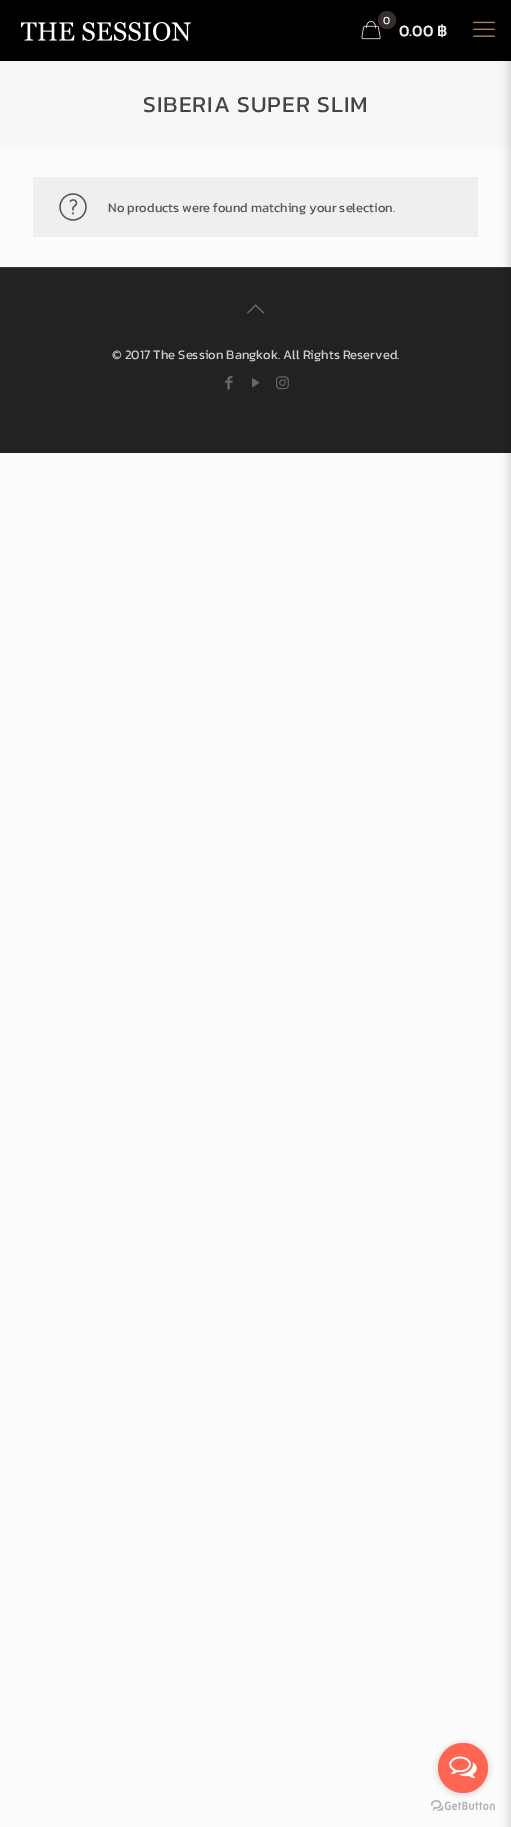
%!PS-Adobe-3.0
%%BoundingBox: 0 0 511 1827
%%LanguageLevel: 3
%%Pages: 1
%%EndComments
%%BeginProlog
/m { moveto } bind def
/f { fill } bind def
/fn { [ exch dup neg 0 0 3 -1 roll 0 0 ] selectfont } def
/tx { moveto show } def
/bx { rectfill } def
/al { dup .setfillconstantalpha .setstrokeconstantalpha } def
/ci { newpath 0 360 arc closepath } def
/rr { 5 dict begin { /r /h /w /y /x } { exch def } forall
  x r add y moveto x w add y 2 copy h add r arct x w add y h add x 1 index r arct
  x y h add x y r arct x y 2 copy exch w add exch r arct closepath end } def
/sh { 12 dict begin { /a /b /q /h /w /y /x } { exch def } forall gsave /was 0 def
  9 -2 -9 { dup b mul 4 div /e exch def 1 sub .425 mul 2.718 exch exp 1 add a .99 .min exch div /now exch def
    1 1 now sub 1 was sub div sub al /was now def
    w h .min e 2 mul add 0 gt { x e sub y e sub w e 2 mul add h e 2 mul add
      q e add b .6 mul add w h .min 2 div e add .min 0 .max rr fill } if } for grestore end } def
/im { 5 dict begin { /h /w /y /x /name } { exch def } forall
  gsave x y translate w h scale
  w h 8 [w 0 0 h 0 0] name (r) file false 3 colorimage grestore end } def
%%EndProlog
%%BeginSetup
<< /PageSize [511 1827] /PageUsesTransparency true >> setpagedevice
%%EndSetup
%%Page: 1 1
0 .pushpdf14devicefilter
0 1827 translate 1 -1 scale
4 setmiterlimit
0.988 setgray
0 0 511 1827 bx
0 setgray
0 0 511 61 bx
(image0.raw) 361 20 20 20 im
0.216 0.176 0.165 setrgbcolor
387 20 9 ci f
/Kanit-Regular 11 fn
1 setgray
(0) 383 24 tx
/Kanit-Medium 16 fn
0.933 setgray
(0.00 ฿) 399 36 tx
(image1.raw) 21 22 170 19 im
(image2.raw) 473 21 22 16 im
0.969 setgray
0 61 511 86 bx
/Kanit-Regular 23 fn
0.267 setgray
143 112 m 1 0 (SIBERIA SUPER SLIM) ashow
0.937 setgray
33 177 445 60 bx
(image3.raw) 59 193 28 28 im
/Kanit-Regular 13 fn
0.341 0.341 0.357 setrgbcolor
(No products were found matching your selection.) 108 212 tx
0.133 setgray
0 268 511 185 bx
0.22 setgray
0 267 511 1 bx
(image4.raw) 247 304 18 10 im
0.8 setgray
(© 2017 The Session Bangkok. All Rights Reserved.) 112 359 tx
(image5.raw) 225 376 8 14 im
(image6.raw) 252 378 8 10 im
(image7.raw) 276 376 13 14 im
0 setgray
510 -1 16 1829 0 5 0.2 sh
(image9.raw) 431 1800 64 11 im
0.533 setgray
438 1744 50 50 25 3.5 0.4 sh
1 0.396 0.314 setrgbcolor
463 1768 25 ci f
(image8.raw) 449 1756 28 23 im
.poppdf14devicefilter showpage
%%EOF
